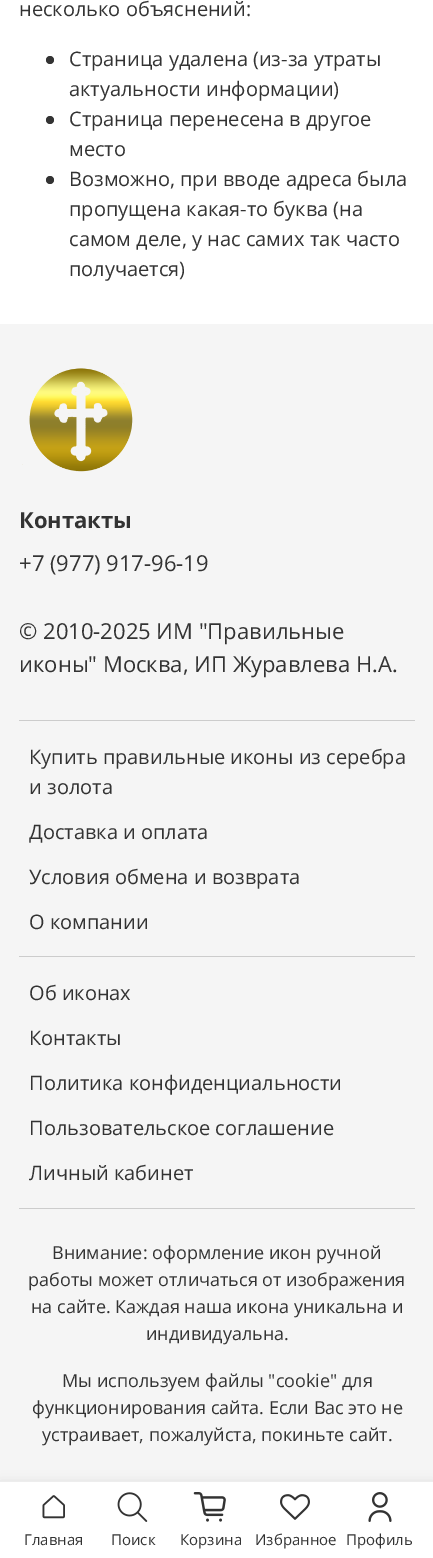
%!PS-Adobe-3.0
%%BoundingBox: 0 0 433 1558
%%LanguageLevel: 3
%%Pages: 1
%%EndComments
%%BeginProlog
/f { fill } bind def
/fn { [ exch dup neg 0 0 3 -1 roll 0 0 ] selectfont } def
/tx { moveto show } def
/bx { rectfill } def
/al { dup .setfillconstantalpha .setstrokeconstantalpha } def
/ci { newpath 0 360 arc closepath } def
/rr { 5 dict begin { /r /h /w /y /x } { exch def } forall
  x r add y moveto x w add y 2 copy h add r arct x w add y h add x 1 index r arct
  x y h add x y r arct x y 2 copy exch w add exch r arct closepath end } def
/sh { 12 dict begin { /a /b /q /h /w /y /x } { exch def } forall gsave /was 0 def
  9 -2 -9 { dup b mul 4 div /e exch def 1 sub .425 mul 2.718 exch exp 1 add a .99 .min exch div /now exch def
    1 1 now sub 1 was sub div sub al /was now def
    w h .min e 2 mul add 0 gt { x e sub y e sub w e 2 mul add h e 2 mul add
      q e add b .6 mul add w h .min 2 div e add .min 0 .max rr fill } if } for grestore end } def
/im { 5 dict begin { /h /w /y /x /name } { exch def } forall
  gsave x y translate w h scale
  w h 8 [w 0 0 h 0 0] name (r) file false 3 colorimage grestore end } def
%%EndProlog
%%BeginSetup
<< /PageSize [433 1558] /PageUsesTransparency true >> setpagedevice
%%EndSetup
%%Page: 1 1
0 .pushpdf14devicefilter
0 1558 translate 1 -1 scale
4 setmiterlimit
1 setgray
0 0 433 1558 bx
/OpenSans-Regular 20 fn
0.2 setgray
(несколько объяснений:) 19 16 tx
50 60 4 ci f
(Страница удалена \(из-за утраты) 69 66 tx
(актуальности информации\)) 69 96 tx
50 120 4 ci f
(Страница перенесена в другое) 69 126 tx
(место) 69 156 tx
50 180 4 ci f
(Возможно, при вводе адреса была) 69 186 tx
(пропущена какая-то буква \(на) 69 216 tx
(самом деле, у нас самих так часто) 69 246 tx
(получается\)) 69 276 tx
0.961 setgray
0 324 433 1157 bx
(image0.raw) 22 368 111 104 im
/OpenSans-Bold 22 fn
0.2 setgray
(Контакты) 19 528 tx
/OpenSans-Regular 22 fn
(+7 \(977\) 917-96-19) 19 571 tx
(© 2010-2025 ИМ "Правильные) 19 639 tx
(иконы" Москва, ИП Журавлева Н.А.) 19 672 tx
0.8 setgray
19 720 396 1 bx
/OpenSans-Regular 20 fn
0.2 setgray
(Купить правильные иконы из серебра) 29 764 tx
(и золота) 29 794 tx
(Доставка и оплата) 29 839 tx
(Условия обмена и возврата) 29 884 tx
(О компании) 29 929 tx
0.8 setgray
19 956 396 1 bx
19 1208 396 1 bx
0.2 setgray
(Об иконах) 29 1000 tx
(Контакты) 29 1045 tx
(Политика конфиденциальности) 29 1090 tx
(Пользовательское соглашение) 29 1135 tx
(Личный кабинет) 29 1180 tx
/OpenSans-Regular 18 fn
(Внимание: оформление икон ручной) 52 1259 tx
(работы может отличаться от изображения) 28 1286 tx
(на сайте. Каждая наша икона уникальна и) 31 1313 tx
(индивидуальна.) 146 1340 tx
(Мы используем файлы "cookie" для) 62 1387 tx
(функционирования сайта. Если Вас это не) 32 1414 tx
(устраивает, пожалуйста, покиньте сайт.) 42 1441 tx
0 setgray
0 1484 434 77 0 6 0.12 sh
1 setgray
0 1482 433 76 bx
0.929 setgray
0 1481 433 1 bx
(image1.raw) 42 1495 23 24 im
/OpenSans-Regular 15 fn
0.2 setgray
(Главная) 24 1545 tx
(image2.raw) 117 1492 31 30 im
(Поиск) 111 1545 tx
(image3.raw) 193 1492 33 30 im
(Корзина) 180 1545 tx
(image4.raw) 280 1494 30 26 im
(Избранное) 255 1545 tx
(image5.raw) 368 1492 24 30 im
(Профиль) 346 1545 tx
.poppdf14devicefilter showpage
%%EOF
